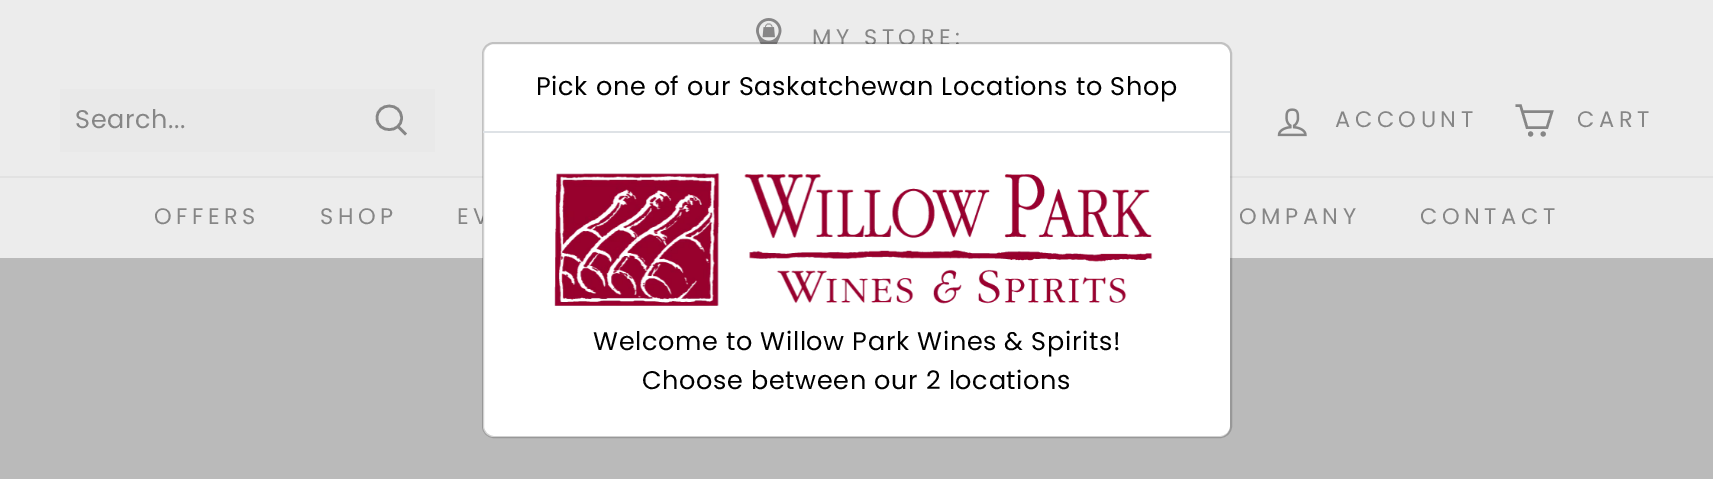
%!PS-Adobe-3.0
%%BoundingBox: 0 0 1713 479
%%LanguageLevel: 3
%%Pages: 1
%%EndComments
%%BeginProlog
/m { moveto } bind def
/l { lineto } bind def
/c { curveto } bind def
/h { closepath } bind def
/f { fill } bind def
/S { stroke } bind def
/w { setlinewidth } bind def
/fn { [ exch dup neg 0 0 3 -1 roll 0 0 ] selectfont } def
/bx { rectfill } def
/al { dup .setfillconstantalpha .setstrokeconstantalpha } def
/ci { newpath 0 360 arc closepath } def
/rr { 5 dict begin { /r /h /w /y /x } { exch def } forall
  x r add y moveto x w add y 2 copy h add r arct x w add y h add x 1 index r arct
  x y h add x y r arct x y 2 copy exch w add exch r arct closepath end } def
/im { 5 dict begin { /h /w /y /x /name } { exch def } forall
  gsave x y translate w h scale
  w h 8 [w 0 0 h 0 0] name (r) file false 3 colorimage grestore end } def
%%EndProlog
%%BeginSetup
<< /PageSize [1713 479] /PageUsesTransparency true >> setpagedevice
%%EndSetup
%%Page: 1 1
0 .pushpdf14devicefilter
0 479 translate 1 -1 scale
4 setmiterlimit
0.729 setgray
0 0 1713 479 bx
0.925 setgray
0 0 1713 176 bx
(image0.raw) 756 18 26 26 im
/Poppins-Regular 22.5 fn
0.525 setgray
812 45 m 4.5 0 (MY STORE:) ashow
0.914 setgray
60 89 375 63 bx
/Poppins-Regular 25.5 fn
0.525 setgray
75 128 m 0.65 0 (Search...) ashow
2.6 w
401.5 118 m 401.5 133.5 377 133.5 377 118 c 377 102 401.5 102 401.5 118 c h 406 134.5 m 398 126.5 l S
(image1.raw) 1277 108 30 29 im
/Poppins-Regular 22.5 fn
1335 127 m 4.5 0 (ACCOUNT) ashow
2.5 w
1522.5 111.5 m 1552 111.5 l 1547 127.5 l 1527 127.5 l 1520.5 105.5 l 1515.5 105.5 l S
1530.6 134 1.3 ci S
1543.2 134 1.3 ci S
1577 127 m 4.5 0 (CART) ashow
0.886 setgray
0 176 1713 2 bx
0.925 setgray
0 178 1713 80 bx
0.525 setgray
154 224 m 4.5 0 (OFFERS) ashow
320 224 m 4.5 0 (SHOP) ashow
457 224 m 4.5 0 (EV) ashow
1239 224 m 4.5 0 (OMPANY) ashow
1420 224 m 4.5 0 (CONTACT) ashow
1 setgray
483 44 747 393 11 rr f
0.18 al
0 setgray
2 w
483 43 748 394 11 rr S
1 al
0.871 0.886 0.902 setrgbcolor
483 131 747 2 bx
/Poppins-Regular 25.5 fn
0 setgray
536 95 m 0.65 0 (Pick one of our Saskatchewan Locations to Shop) ashow
(image2.raw) 554 173 599 133 im
593 350 m 0.65 0 (Welcome to Willow Park Wines & Spirits!) ashow
642 389 m 0.65 0 (Choose between our 2 locations) ashow
.poppdf14devicefilter showpage
%%EOF
